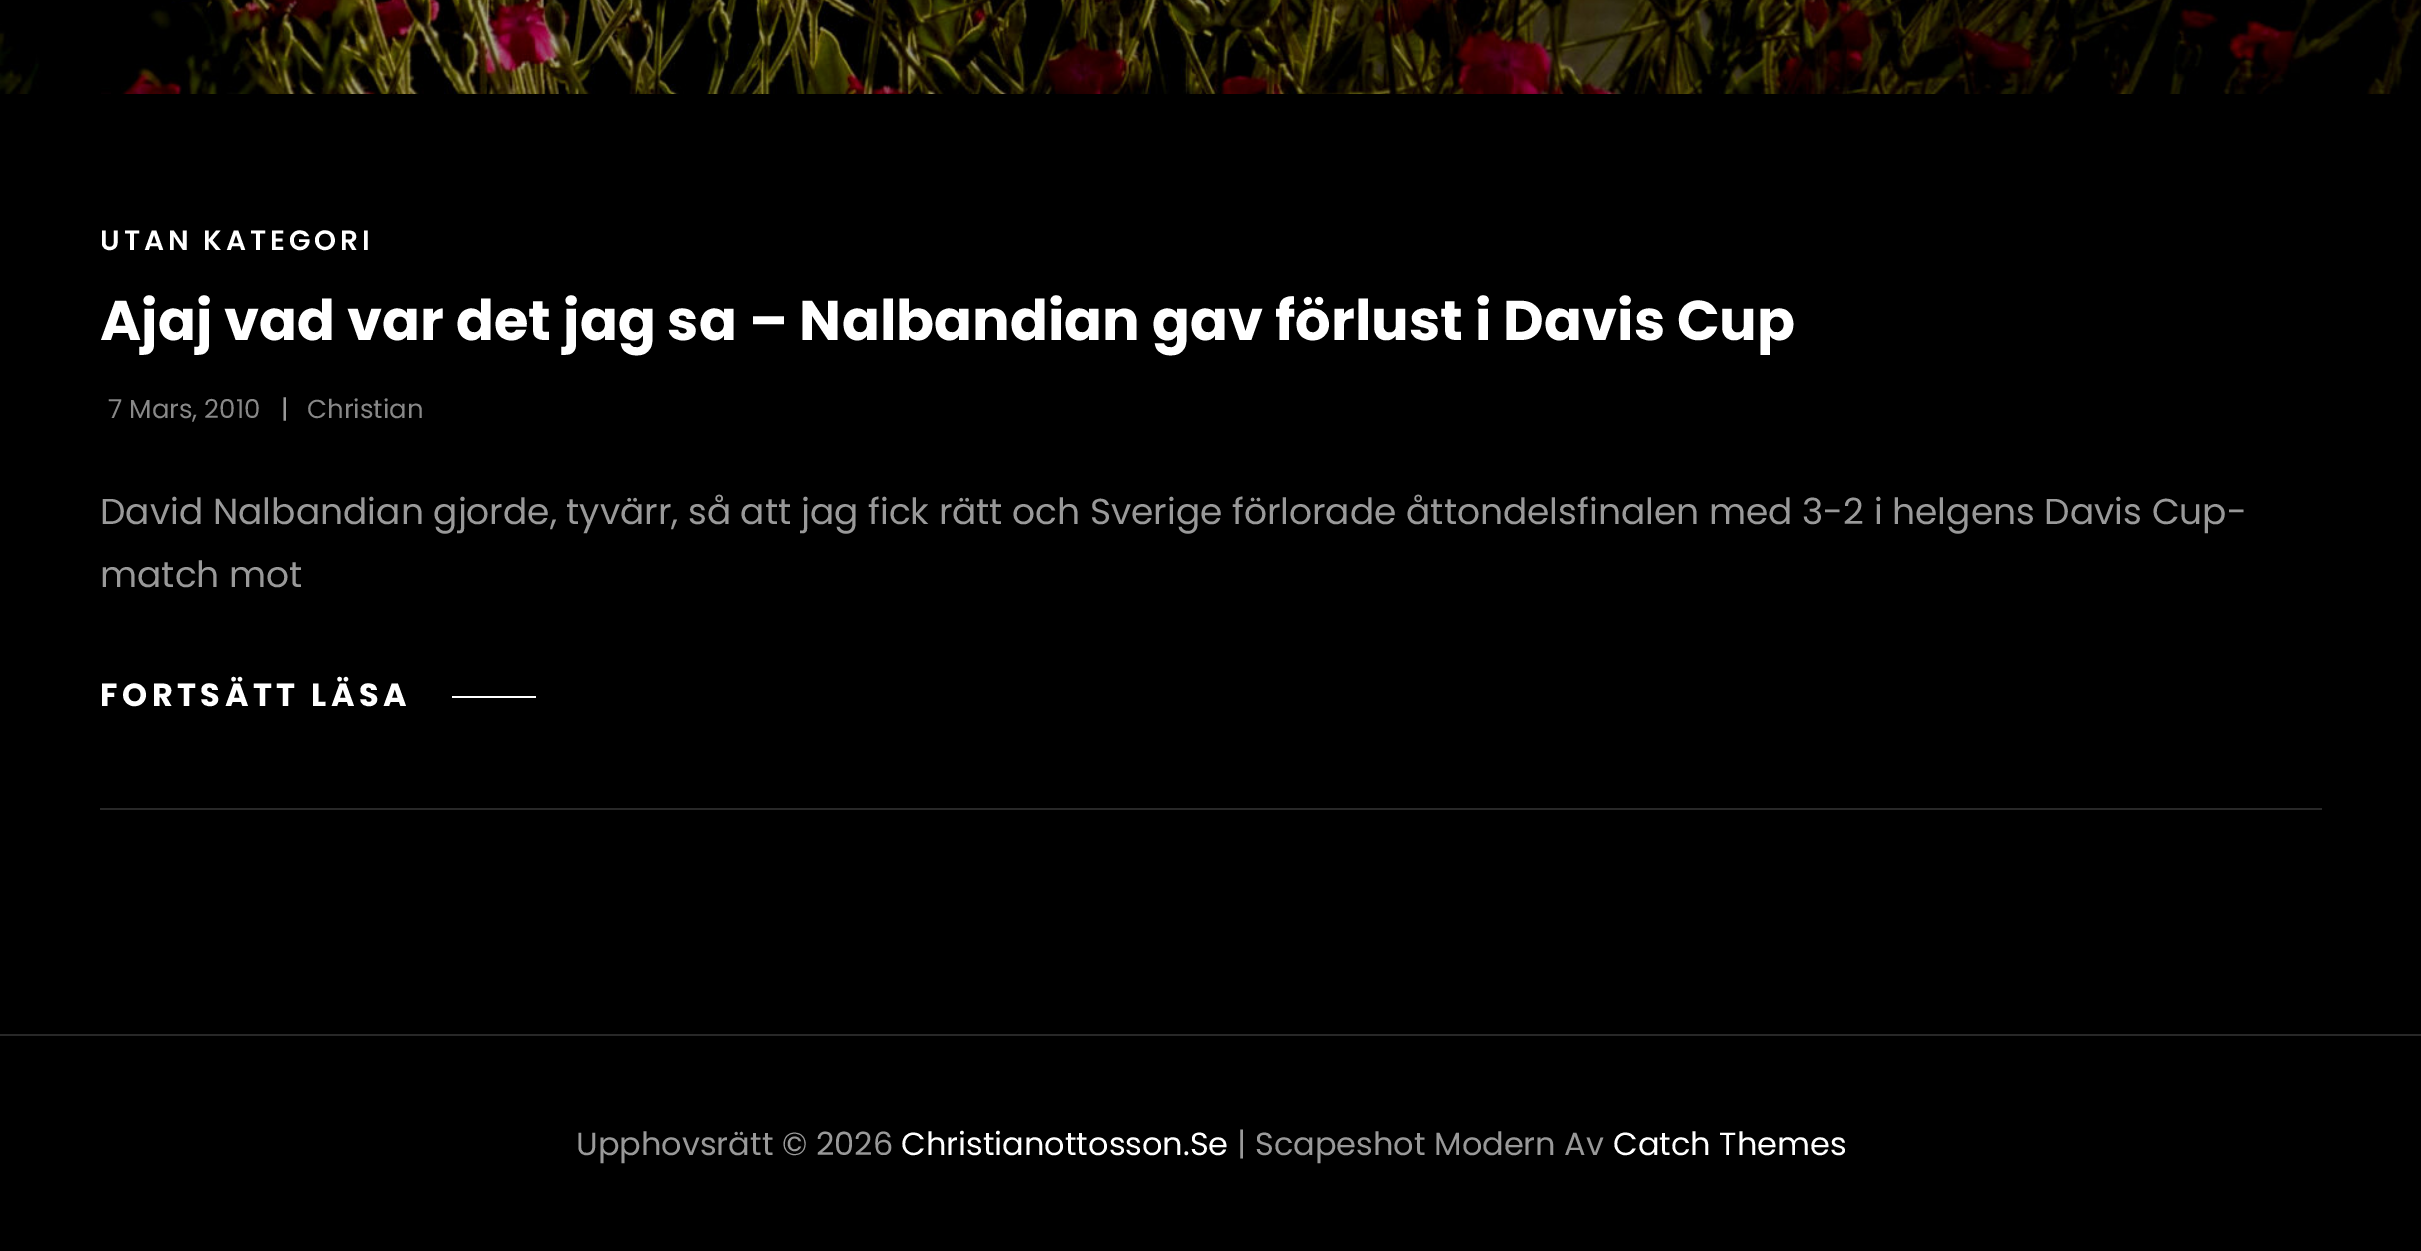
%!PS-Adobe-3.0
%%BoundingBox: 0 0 2421 1251
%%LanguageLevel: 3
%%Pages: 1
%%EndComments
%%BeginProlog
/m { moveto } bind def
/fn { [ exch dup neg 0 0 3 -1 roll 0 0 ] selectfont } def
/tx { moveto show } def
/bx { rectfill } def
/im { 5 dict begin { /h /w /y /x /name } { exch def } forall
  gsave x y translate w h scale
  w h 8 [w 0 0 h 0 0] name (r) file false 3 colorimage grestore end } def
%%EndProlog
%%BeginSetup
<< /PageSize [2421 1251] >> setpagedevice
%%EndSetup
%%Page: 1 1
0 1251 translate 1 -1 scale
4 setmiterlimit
0 setgray
0 0 2421 1251 bx
(image0.raw) 0 0 2421 94 im
0.157 setgray
100 808 2222 2 bx
/Poppins-SemiBold 28 fn
1 setgray
100 250 m 4 0 (UTAN KATEGORI) ashow
/Poppins-Bold 56 fn
(Ajaj vad var det jag sa – Nalbandian gav förlust i Davis Cup) 100 340 tx
/Poppins-Regular 26 fn
0.533 setgray
(7 Mars, 2010) 108 418 tx
0.6 setgray
(|) 281 418 tx
0.533 setgray
(Christian) 307 418 tx
/Poppins-Regular 36 fn
0.6 setgray
(David Nalbandian gjorde, tyvärr, så att jag fick rätt och Sverige förlorade åttondelsfinalen med 3-2 i helgens Davis Cup-) 100 524 tx
(match mot) 100 587 tx
/Poppins-Bold 32 fn
1 setgray
100 706 m 4.5 0 (FORTSÄTT LÄSA) ashow
452 696 84 2 bx
0.157 setgray
0 1034 2421 2 bx
/Poppins-Regular 32 fn
0.6 setgray
(Upphovsrätt © 2026) 576 1155 tx
1 setgray
(Christianottosson.Se) 901 1155 tx
0.6 setgray
(| Scapeshot Modern Av) 1237 1155 tx
1 setgray
(Catch Themes) 1613 1155 tx
showpage
%%EOF
